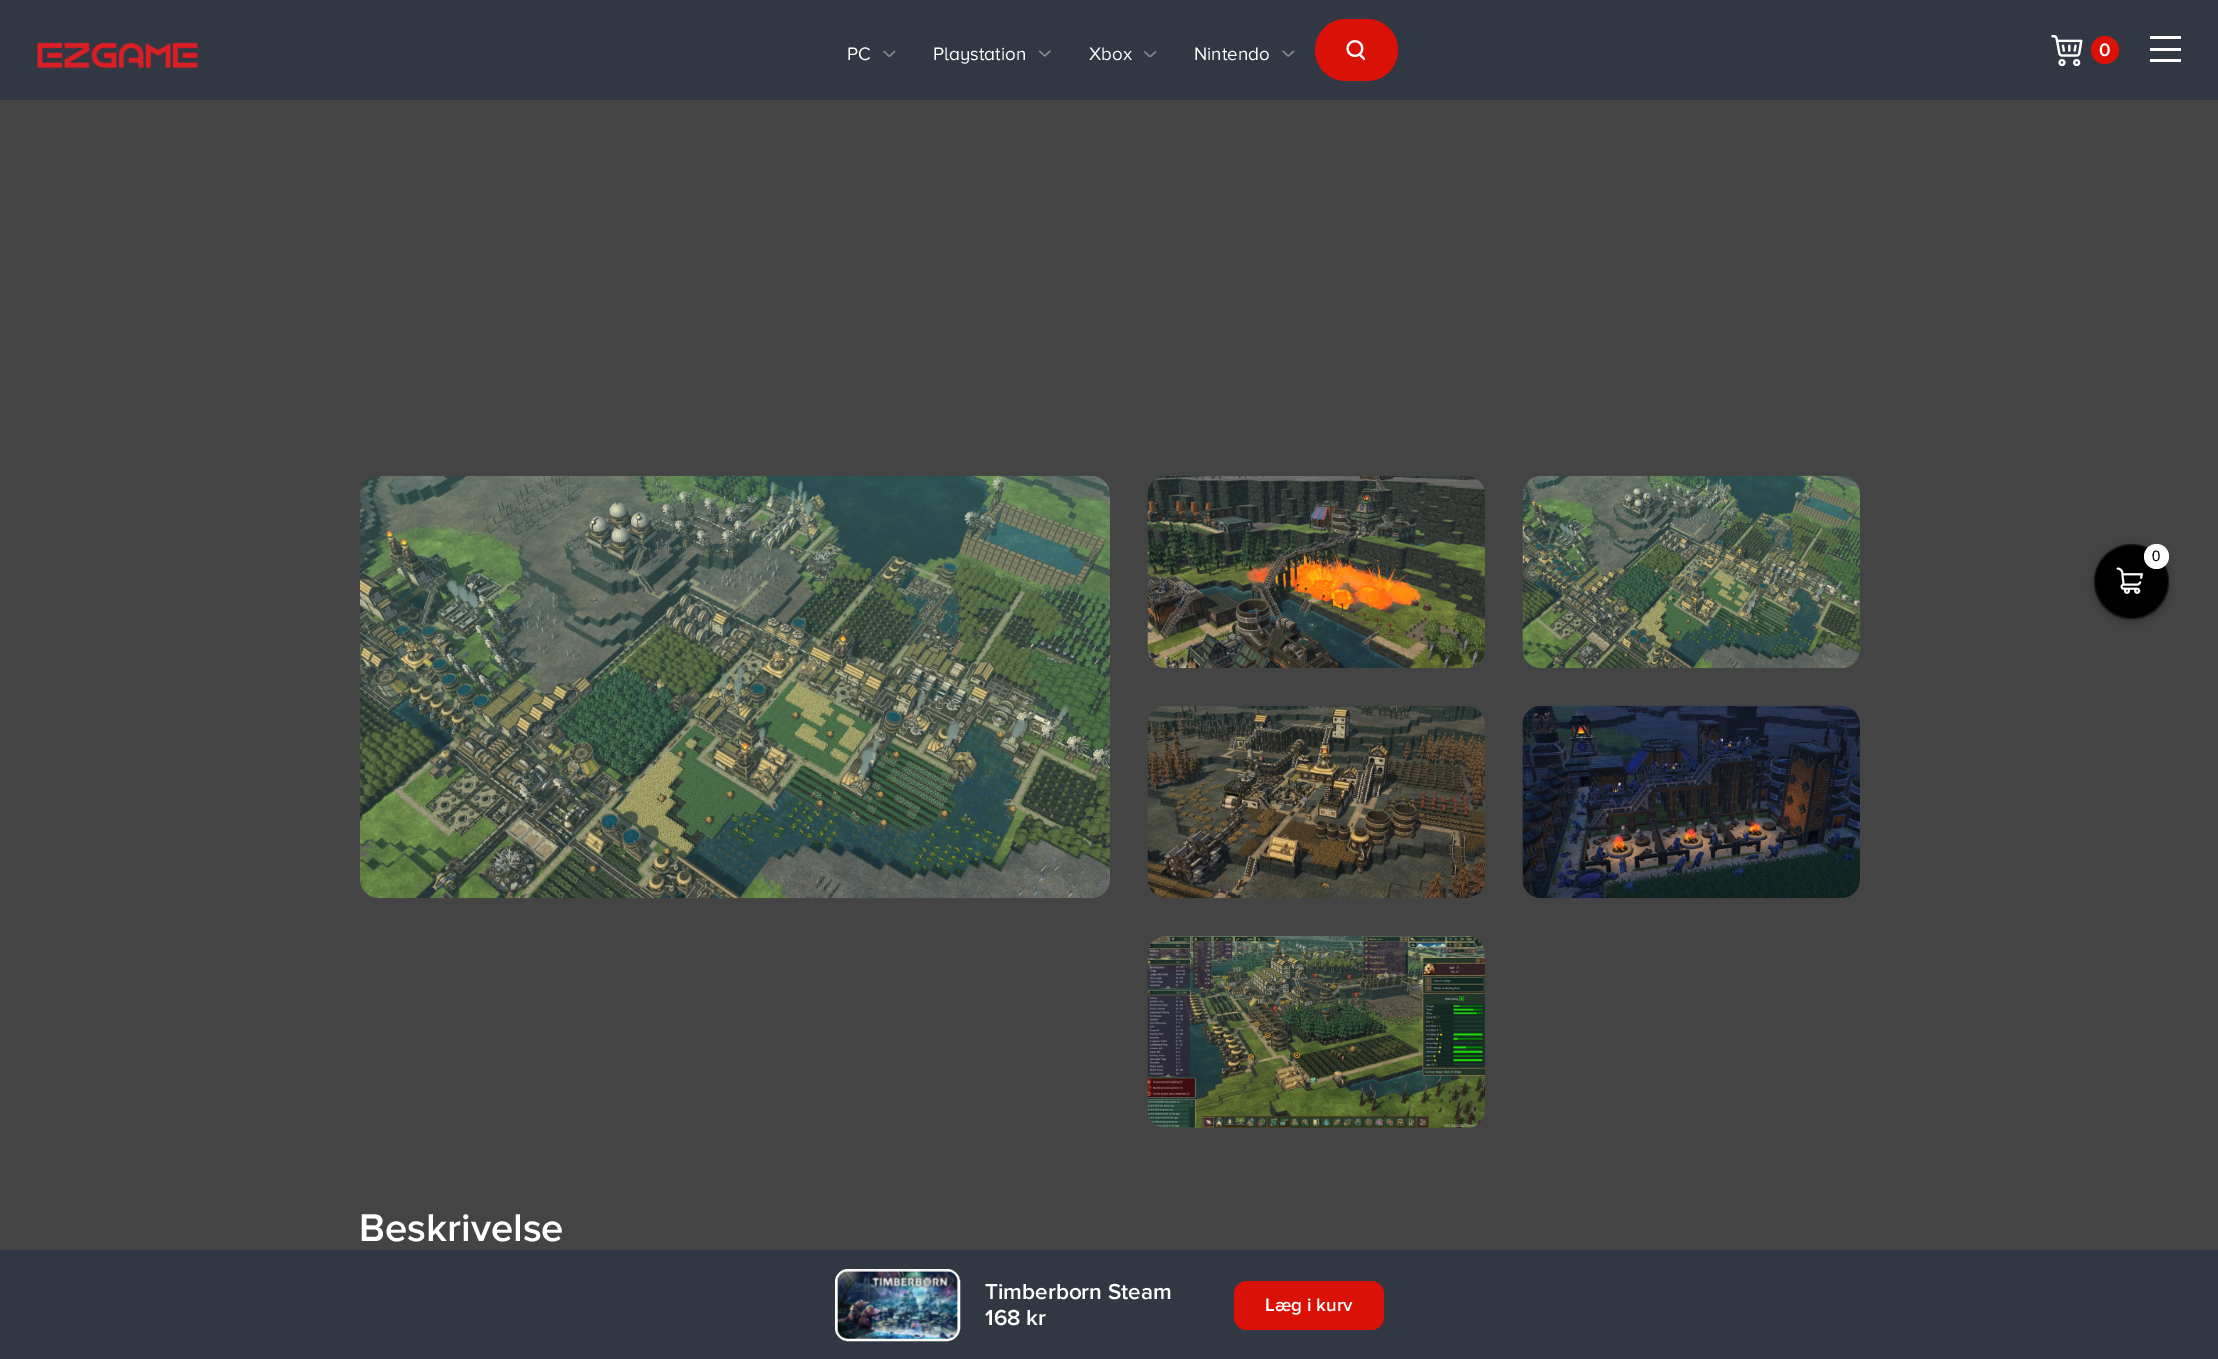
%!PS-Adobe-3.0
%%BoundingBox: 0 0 2218 1359
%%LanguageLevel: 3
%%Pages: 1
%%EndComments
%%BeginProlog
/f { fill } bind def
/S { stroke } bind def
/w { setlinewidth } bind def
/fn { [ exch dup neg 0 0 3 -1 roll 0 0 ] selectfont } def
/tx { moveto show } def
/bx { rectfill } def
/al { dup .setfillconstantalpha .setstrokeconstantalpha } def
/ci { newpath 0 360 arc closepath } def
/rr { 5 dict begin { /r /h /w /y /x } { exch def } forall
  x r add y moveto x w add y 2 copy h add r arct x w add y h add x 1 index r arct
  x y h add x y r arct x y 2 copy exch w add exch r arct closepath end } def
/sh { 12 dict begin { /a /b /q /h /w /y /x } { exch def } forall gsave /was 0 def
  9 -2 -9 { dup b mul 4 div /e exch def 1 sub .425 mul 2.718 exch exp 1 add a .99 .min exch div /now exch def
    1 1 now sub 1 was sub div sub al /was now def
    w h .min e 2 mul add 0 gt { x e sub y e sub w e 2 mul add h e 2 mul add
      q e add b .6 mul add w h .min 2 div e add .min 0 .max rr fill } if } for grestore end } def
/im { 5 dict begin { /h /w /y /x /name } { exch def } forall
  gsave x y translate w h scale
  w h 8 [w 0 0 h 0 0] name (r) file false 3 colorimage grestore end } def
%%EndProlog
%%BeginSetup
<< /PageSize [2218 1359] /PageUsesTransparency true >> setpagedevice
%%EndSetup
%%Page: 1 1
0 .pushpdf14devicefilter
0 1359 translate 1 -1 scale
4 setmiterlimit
0.267 setgray
0 0 2218 1359 bx
0.192 0.22 0.263 setrgbcolor
0 0 2218 100 bx
(image0.raw) 37 42 161 26 im
/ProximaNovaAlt-Regular 18.75 fn
1 setgray
(PC) 847 60 tx
(image1.raw) 883 50 13 7 im
(Playstation) 933 60 tx
(image2.raw) 1038 50 13 7 im
(Xbox) 1089 60 tx
(image3.raw) 1144 51 13 6 im
(Nintendo) 1194 60 tx
(image4.raw) 1282 50 13 7 im
0.855 0.067 0.024 setrgbcolor
1315 19 83 62 31 rr f
(image5.raw) 1346 40 19 20 im
(image6.raw) 2051 35 32 31 im
2105 50 14 ci f
/ProximaNova-SemiBold 18.75 fn
1 setgray
(0) 2099 56 tx
2150 48 31 3 bx
2150 36 31 3 bx
2150 59 31 3 bx
0 setgray
2094 546 75 75 37.5 4 0.25 sh
2094 545 75 75 37.5 0.5 0.25 sh
2131.5 581.5 37.5 ci f
0.1 al
1 setgray
2131.5 581.5 37 ci S
1 al
2156.5 556.5 12.5 ci f
/LiberationSans-Regular 15 fn
0 setgray
(0) 2152 561 tx
(image7.raw) 2116 567 27 27 im
(image8.raw) 360 475 750 424 im
(image9.raw) 1147 476 338 193 im
(image10.raw) 1522 475 338 194 im
(image11.raw) 1147 706 338 193 im
(image12.raw) 1522 705 338 194 im
(image13.raw) 1147 935 338 193 im
/ProximaNova-SemiBold 40 fn
1 setgray
(Beskrivelse) 359 1241 tx
0.192 0.22 0.263 setrgbcolor
0 1250 2218 109 bx
1 setgray
3 w
836.5 1270.5 122 69 11.5 rr S
(image14.raw) 837 1270 121 69 im
/ProximaNova-SemiBold 22.5 fn
(Timberborn Steam) 985 1299 tx
(168 kr) 985 1325 tx
0.855 0.067 0.024 setrgbcolor
1234 1281 150 49 13 rr f
/ProximaNova-SemiBold 18.75 fn
1 setgray
(Læg i kurv) 1265 1311 tx
.poppdf14devicefilter showpage
%%EOF
